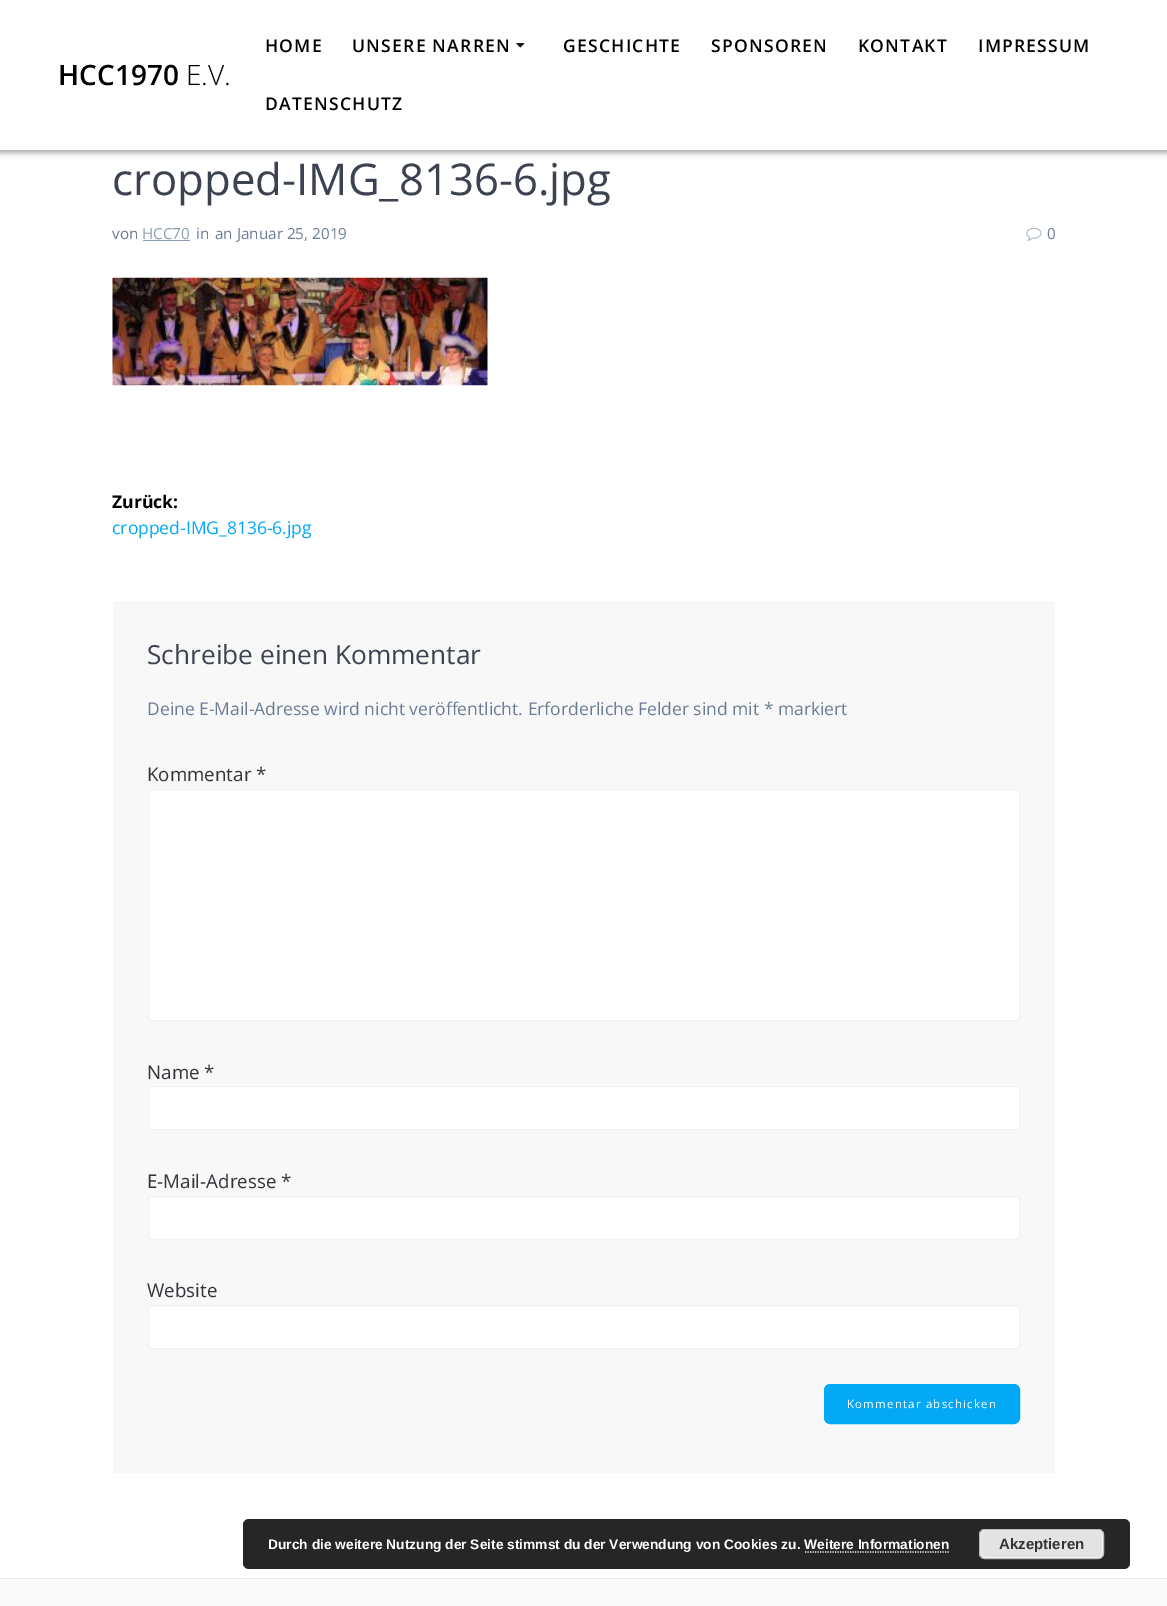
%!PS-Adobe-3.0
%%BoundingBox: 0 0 1167 1606
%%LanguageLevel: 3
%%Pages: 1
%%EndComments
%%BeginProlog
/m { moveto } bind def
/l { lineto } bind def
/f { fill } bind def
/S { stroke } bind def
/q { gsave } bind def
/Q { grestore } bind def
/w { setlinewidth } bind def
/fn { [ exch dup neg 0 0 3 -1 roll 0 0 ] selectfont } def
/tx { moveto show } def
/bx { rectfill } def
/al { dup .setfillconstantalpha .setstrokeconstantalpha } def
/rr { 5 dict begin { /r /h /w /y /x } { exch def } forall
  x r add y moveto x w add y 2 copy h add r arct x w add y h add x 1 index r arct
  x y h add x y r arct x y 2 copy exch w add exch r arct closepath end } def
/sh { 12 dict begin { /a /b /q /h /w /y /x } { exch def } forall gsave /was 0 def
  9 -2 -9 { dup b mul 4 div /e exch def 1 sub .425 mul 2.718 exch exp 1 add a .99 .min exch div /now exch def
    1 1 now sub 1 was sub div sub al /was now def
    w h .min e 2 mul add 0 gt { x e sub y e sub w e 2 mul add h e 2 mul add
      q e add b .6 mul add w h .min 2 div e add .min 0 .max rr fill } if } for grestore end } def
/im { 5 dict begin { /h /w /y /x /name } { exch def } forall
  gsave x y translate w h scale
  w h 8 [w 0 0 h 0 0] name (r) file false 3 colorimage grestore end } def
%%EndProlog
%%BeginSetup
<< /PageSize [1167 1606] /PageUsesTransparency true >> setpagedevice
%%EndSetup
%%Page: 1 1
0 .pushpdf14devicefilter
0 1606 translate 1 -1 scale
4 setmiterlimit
1 setgray
0 0 1167 1606 bx
0 setgray
-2 -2 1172 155 0 3 0.33 sh
1 setgray
0 0 1167 150 bx
/OpenSans-SemiBold 28 fn
0 setgray
(HCC1970) 58 85 tx
/OpenSans-Light 28 fn
(E.V.) 186 85 tx
/OpenSans-SemiBold 17.5 fn
265 52 m 1.25 0 (HOME) ashow
352 52 m 1.25 0 (UNSERE NARREN) ashow
(image0.raw) 516 43 9 5 im
563 52 m 1.25 0 (GESCHICHTE) ashow
711 52 m 1.25 0 (SPONSOREN) ashow
858 52 m 1.25 0 (KONTAKT) ashow
978 52 m 1.25 0 (IMPRESSUM) ashow
265 110 m 1.25 0 (DATENSCHUTZ) ashow
/OpenSans-Regular 43.75 fn
0.235 0.259 0.31 setrgbcolor
(cropped-IMG_8136-6.jpg) 112 195 tx
/OpenSans-Regular 15.25 fn
0.42 0.486 0.576 setrgbcolor
(von) 112 239 tx
0.557 0.616 0.682 setrgbcolor
(HCC70) 142 239 tx
143 240 47 1 bx
0.42 0.486 0.576 setrgbcolor
(in) 196 239 tx
(an Januar 25, 2019) 215 239 tx
(image1.raw) 1026 227 16 14 im
(0) 1047 239 tx
(image2.raw) 112 277 376 109 im
/OpenSans-Bold 17.5 fn
0 setgray
(Zurück:) 112 508 tx
/OpenSans-Regular 17.5 fn
0.012 0.663 0.957 setrgbcolor
(cropped-IMG_8136-6.jpg) 112 534 tx
0.973 setgray
113 601 942 872 bx
/OpenSans-Regular 26.25 fn
0.235 0.259 0.31 setrgbcolor
(Schreibe einen Kommentar) 147 664 tx
/OpenSans-Regular 17.5 fn
0.42 0.486 0.576 setrgbcolor
(Deine E-Mail-Adresse wird nicht veröffentlicht. Erforderliche Felder sind mit * markiert) 147 715 tx
/OpenSans-Regular 18.75 fn
0.192 0.204 0.224 setrgbcolor
(Kommentar *) 147 781 tx
1 setgray
148.5 789.5 871 231 3.5 rr q f Q
0.945 setgray
S
0.192 0.204 0.224 setrgbcolor
(Name *) 147 1079 tx
1 setgray
148.5 1086.5 871 43 3.5 rr q f Q
0.945 setgray
S
0.192 0.204 0.224 setrgbcolor
(E-Mail-Adresse *) 147 1188 tx
1 setgray
148.5 1196.5 871 43 3.5 rr q f Q
0.945 setgray
S
0.192 0.204 0.224 setrgbcolor
(Website) 147 1297 tx
1 setgray
148.5 1305.5 871 43 3.5 rr q f Q
0.945 setgray
S
0.012 0.663 0.957 setrgbcolor
825.5 1385.5 193 37 4.5 rr q f Q
3 w
S
/OpenSans-Regular 11.4 fn
1 setgray
847 1408 m 1.25 0 (Kommentar abschicken) ashow
0.98 setgray
0 1579 1167 27 bx
0.91 setgray
0 1578 1167 1 bx
0.149 setgray
243 1519 887 50 6 rr f
/LiberationSans-Bold 13.75 fn
1 setgray
(Durch die weitere Nutzung der Seite stimmst du der Verwendung von Cookies zu. Weitere Informationen) 268 1549 tx
0.89 setgray
979 1529 125 30 6 rr f
0.965 setgray
1 w
980.5 1530.5 122 27 4.5 rr S
0.733 setgray
979.5 1529.5 124 29 5.5 rr S
/LiberationSans-Bold 15 fn
0.2 setgray
(Akzeptieren) 999 1549 tx
1 setgray
1.2 w
[1.25 1.25] 0 setdash
805 1552 m 950 1552 l S
.poppdf14devicefilter showpage
%%EOF
